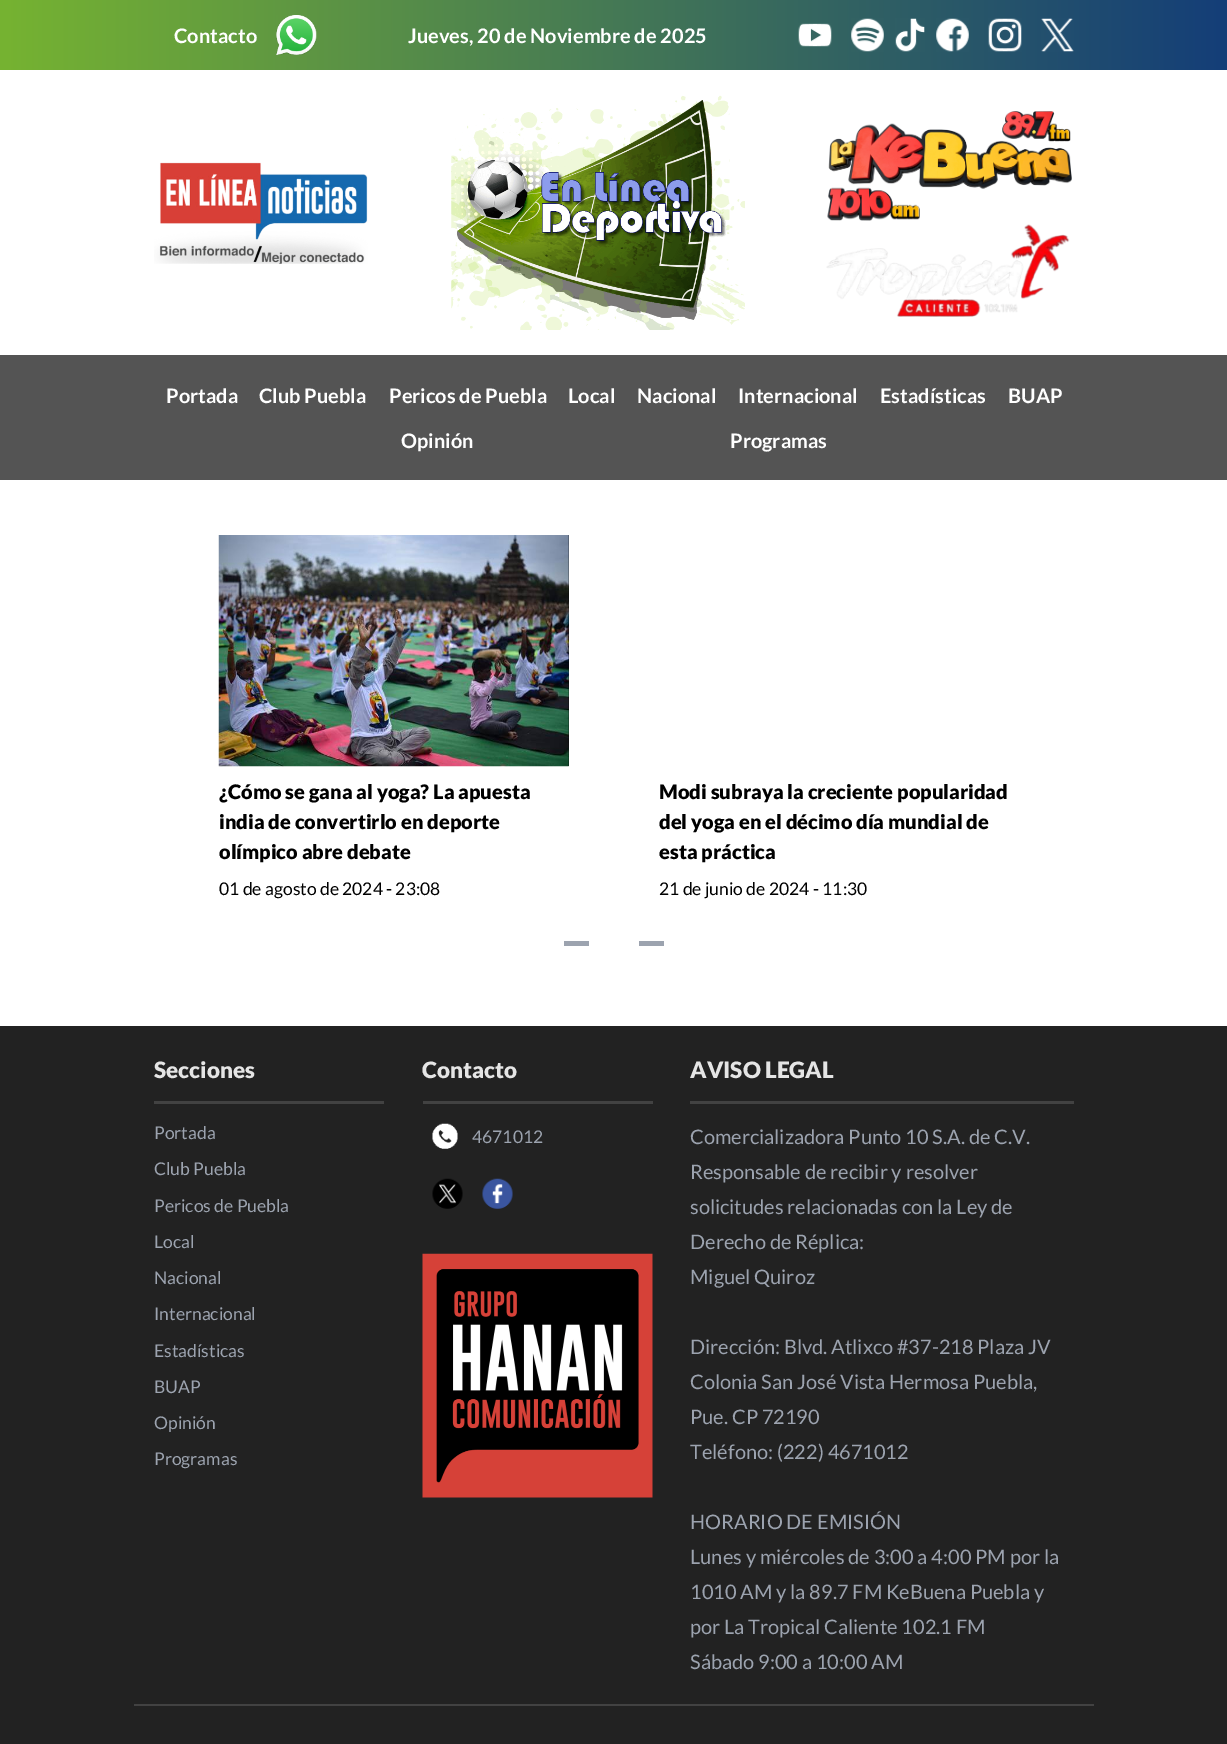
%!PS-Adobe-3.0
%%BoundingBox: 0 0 1227 1744
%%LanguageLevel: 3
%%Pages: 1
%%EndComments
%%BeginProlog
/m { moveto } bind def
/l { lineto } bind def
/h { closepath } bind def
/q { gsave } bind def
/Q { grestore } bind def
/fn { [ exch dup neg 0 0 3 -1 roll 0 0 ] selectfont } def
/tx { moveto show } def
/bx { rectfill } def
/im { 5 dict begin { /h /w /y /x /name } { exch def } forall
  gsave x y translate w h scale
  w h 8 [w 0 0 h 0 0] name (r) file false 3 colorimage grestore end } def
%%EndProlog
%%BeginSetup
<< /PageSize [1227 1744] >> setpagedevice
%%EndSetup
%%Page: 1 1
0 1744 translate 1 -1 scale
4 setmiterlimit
1 setgray
0 0 1227 1744 bx
q 0 0 m 1227 0 l 1227 70 l 0 70 l h clip newpath
<< /ShadingType 2 /ColorSpace /DeviceRGB /Coords [0 35 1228 35] /Extend [true true] /Function << /FunctionType 2 /Domain [0 1] /C0 [0.463 0.702 0.192] /C1 [0.078 0.243 0.471] /N 1 >> >> shfill Q
/Lato-Bold 20 fn
(Contacto) 174 43 tx
(image0.raw) 276 15 41 40 im
(Jueves, 20 de Noviembre de 2025) 408 43 tx
(image1.raw) 798 23 34 24 im
(image2.raw) 851 18 33 34 im
(image3.raw) 895 18 30 34 im
(image4.raw) 936 18 33 34 im
(image5.raw) 988 18 34 34 im
(image6.raw) 1041 18 33 34 im
(image7.raw) 154 162 214 102 im
(image8.raw) 451 95 294 235 im
(image9.raw) 827 111 245 110 im
(image10.raw) 826 224 244 93 im
0.329 setgray
0 355 1227 125 bx
1 setgray
(Portada) 166 403 tx
(Club Puebla) 259 403 tx
(Pericos de Puebla) 389 403 tx
(Local) 568 403 tx
(Nacional) 637 403 tx
(Internacional) 738 403 tx
(Estadísticas) 880 403 tx
(BUAP) 1008 403 tx
(Opinión) 401 448 tx
(Programas) 730 448 tx
(image11.raw) 218 535 351 232 im
/Lato-Black 20 fn
0 setgray
(¿Cómo se gana al yoga? La apuesta) 219 799 tx
(india de convertirlo en deporte) 219 829 tx
(olímpico abre debate) 219 859 tx
/Lato-Regular 17.5 fn
(01 de agosto de 2024 - 23:08) 219 895 tx
/Lato-Black 20 fn
(Modi subraya la creciente popularidad) 659 799 tx
(del yoga en el décimo día mundial de) 659 829 tx
(esta práctica) 659 859 tx
/Lato-Regular 17.5 fn
(21 de junio de 2024 - 11:30) 659 895 tx
0.612 0.639 0.686 setrgbcolor
564 941 25 5 bx
639 941 25 5 bx
0.133 setgray
0 1026 1227 718 bx
0.259 setgray
134 1704 960 2 bx
154 1101 230 3 bx
/Lato-Black 22.5 fn
0.898 setgray
(Secciones) 154 1078 tx
/Lato-Regular 17.5 fn
0.612 0.639 0.686 setrgbcolor
(Portada) 154 1139 tx
(Club Puebla) 154 1175 tx
(Pericos de Puebla) 154 1212 tx
(Local) 154 1248 tx
(Nacional) 154 1284 tx
(Internacional) 154 1320 tx
(Estadísticas) 154 1357 tx
(BUAP) 154 1393 tx
(Opinión) 154 1429 tx
(Programas) 154 1465 tx
0.259 setgray
423 1101 230 3 bx
/Lato-Black 22.5 fn
0.898 setgray
(Contacto) 422 1078 tx
(image12.raw) 432 1123 26 26 im
/Lato-Regular 17.5 fn
0.612 0.639 0.686 setrgbcolor
(4671012) 472 1143 tx
(image13.raw) 432 1178 31 31 im
(image14.raw) 482 1178 31 31 im
(image15.raw) 422 1253 231 245 im
0.259 setgray
690 1101 384 3 bx
/Lato-Black 22.5 fn
0.898 setgray
(AVISO LEGAL) 690 1078 tx
/Lato-Regular 20 fn
0.612 0.639 0.686 setrgbcolor
(Comercializadora Punto 10 S.A. de C.V.) 690 1144 tx
(Responsable de recibir y resolver) 690 1179 tx
(solicitudes relacionadas con la Ley de) 690 1214 tx
(Derecho de Réplica:) 690 1249 tx
(Miguel Quiroz) 690 1284 tx
(Dirección: Blvd. Atlixco #37-218 Plaza JV) 690 1354 tx
(Colonia San José Vista Hermosa Puebla,) 690 1389 tx
(Pue. CP 72190) 690 1424 tx
(Teléfono: \(222\) 4671012) 690 1459 tx
(HORARIO DE EMISIÓN) 690 1529 tx
(Lunes y miércoles de 3:00 a 4:00 PM por la) 690 1564 tx
(1010 AM y la 89.7 FM KeBuena Puebla y) 690 1599 tx
(por La Tropical Caliente 102.1 FM) 690 1634 tx
(Sábado 9:00 a 10:00 AM) 690 1669 tx
showpage
%%EOF
